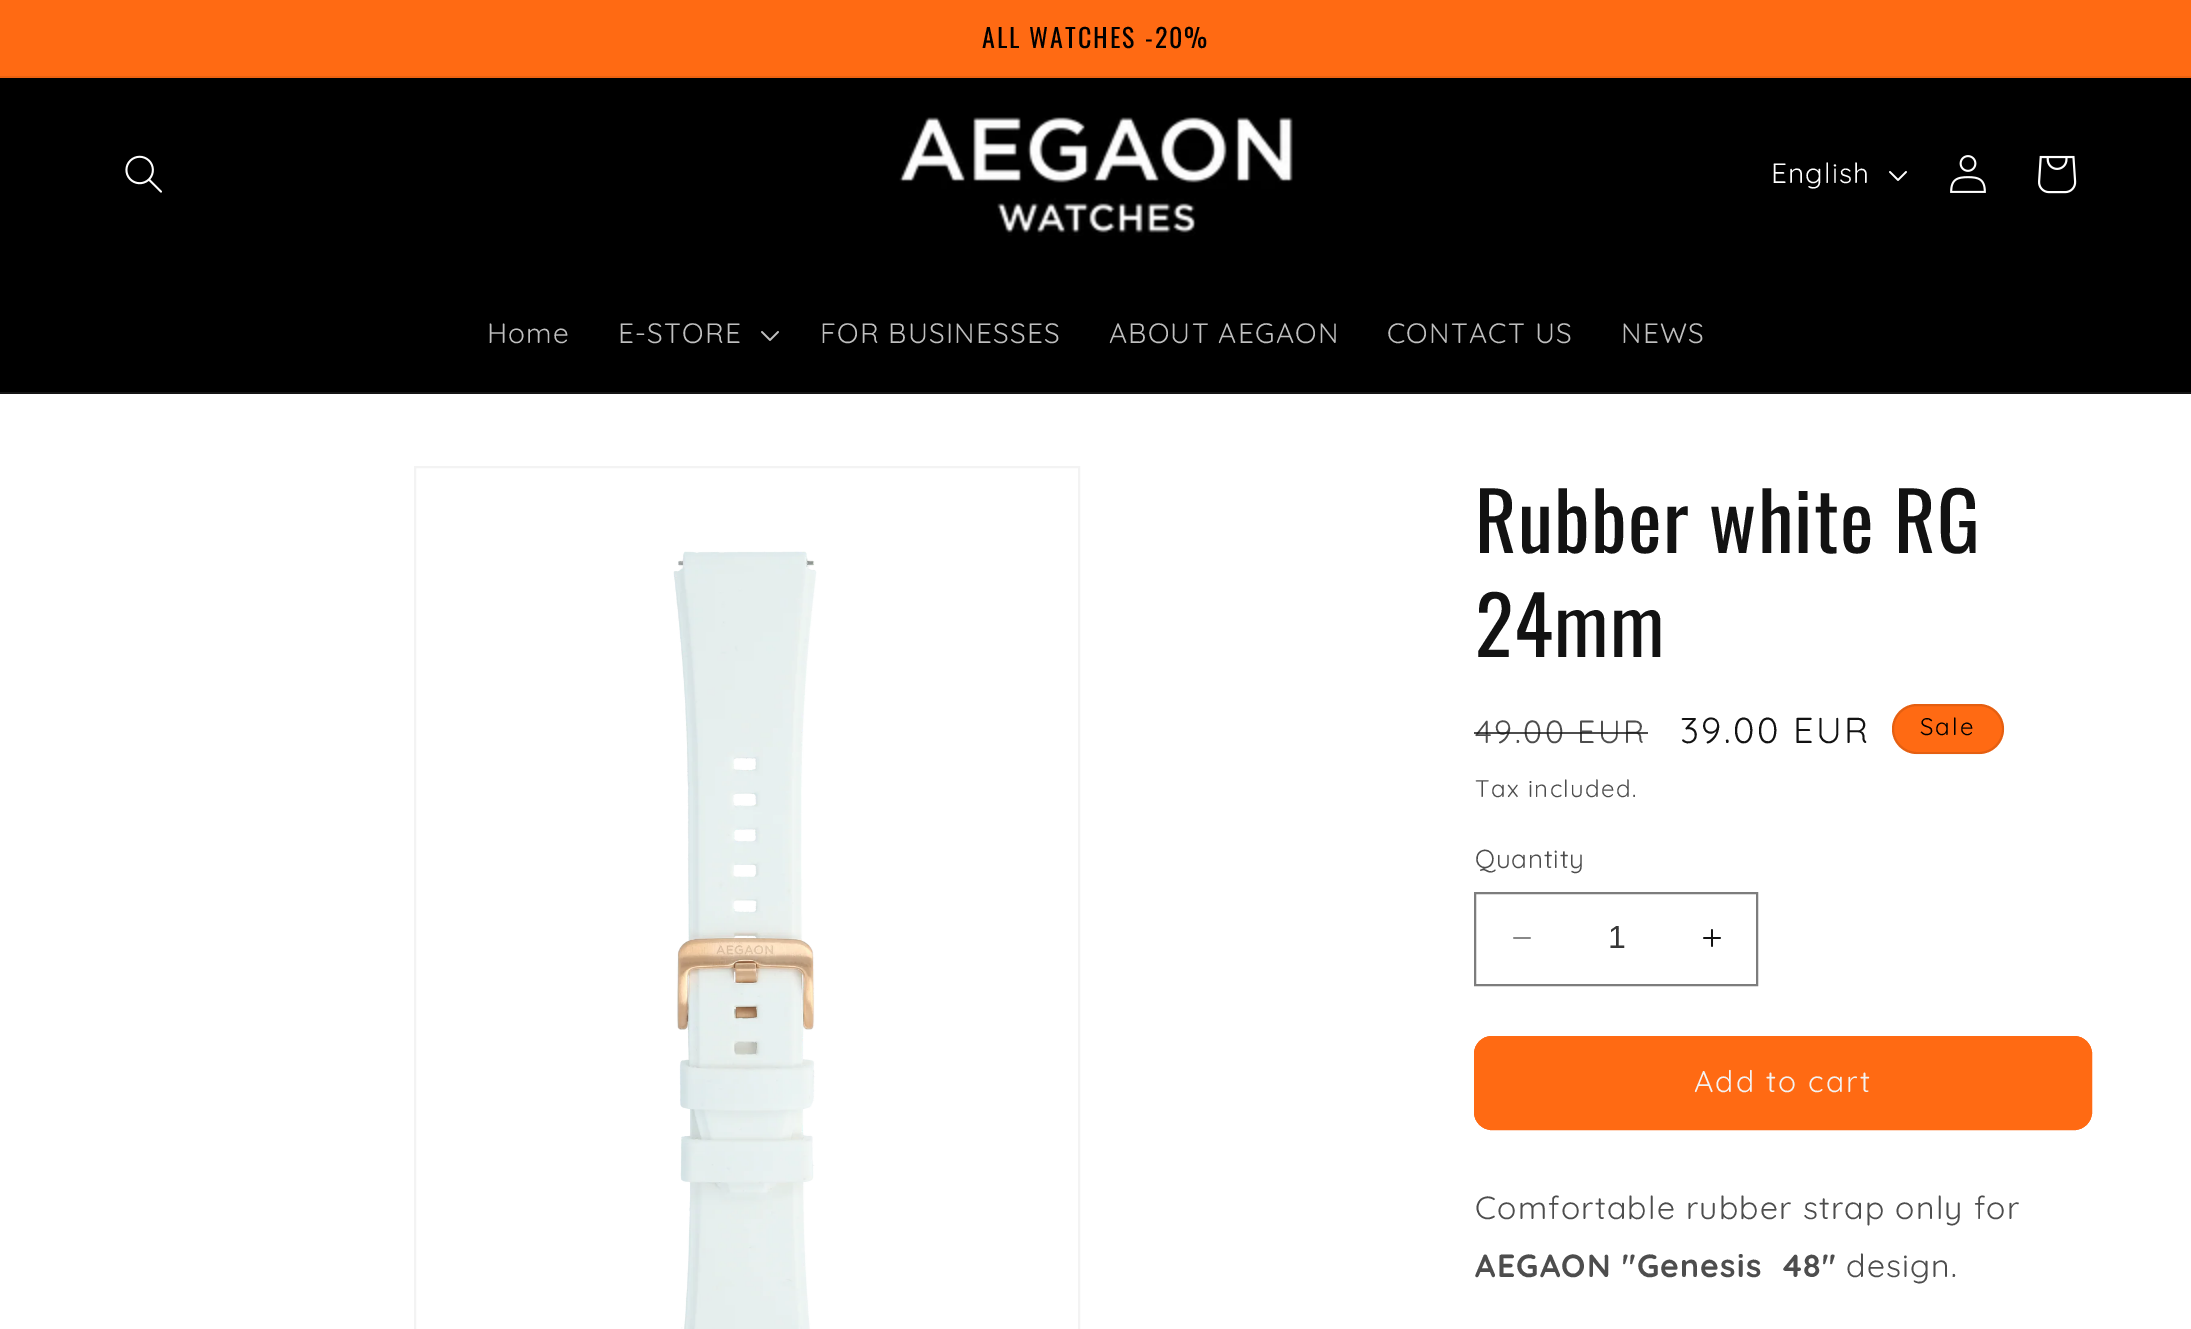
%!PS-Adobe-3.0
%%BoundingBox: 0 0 2191 1329
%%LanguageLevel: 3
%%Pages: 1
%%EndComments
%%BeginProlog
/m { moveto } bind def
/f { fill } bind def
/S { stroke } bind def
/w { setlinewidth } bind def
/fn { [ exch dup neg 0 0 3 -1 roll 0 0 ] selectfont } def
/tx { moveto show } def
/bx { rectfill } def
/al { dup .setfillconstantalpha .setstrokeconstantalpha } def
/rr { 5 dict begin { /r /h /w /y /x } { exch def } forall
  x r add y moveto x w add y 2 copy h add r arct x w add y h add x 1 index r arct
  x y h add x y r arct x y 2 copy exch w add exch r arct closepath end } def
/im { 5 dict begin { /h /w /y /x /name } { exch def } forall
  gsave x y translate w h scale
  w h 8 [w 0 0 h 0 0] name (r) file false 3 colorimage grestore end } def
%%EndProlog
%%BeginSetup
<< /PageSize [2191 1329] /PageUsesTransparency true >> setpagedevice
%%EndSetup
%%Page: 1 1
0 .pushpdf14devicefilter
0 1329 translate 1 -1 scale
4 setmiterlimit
0 setgray
0 0 2191 1329 bx
1 0.416 0.075 setrgbcolor
0 0 2191 76 bx
0.922 0.384 0.067 setrgbcolor
0 76 2191 2 bx
/Oswald-Regular 26 fn
0 setgray
982 48 m 2 0 (ALL WATCHES -20%) ashow
0.078 setgray
0 392 2191 2 bx
(image0.raw) 125 155 37 38 im
(image1.raw) 899 117 394 119 im
/Quicksand-Regular 28 fn
1 setgray
1771 183 m 1.2 0 (English) ashow
(image2.raw) 1889 171 18 10 im
(image3.raw) 1950 155 36 38 im
(image4.raw) 2038 155 39 39 im
0.749 setgray
487 343 m 1.2 0 (Home) ashow
618 343 m 1.2 0 (E-STORE) ashow
(image5.raw) 761 331 18 10 im
820 343 m 1.2 0 (FOR BUSINESSES) ashow
1109 343 m 1.2 0 (ABOUT AEGAON) ashow
1387 343 m 1.2 0 (CONTACT US) ashow
1621 343 m 1.2 0 (NEWS) ashow
1 setgray
0 394 2191 935 bx
0.953 setgray
2 w
415 467 664 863 rectstroke
(image6.raw) 673 551 144 778 im
/Oswald-Regular 80 fn
0.071 setgray
1475 553 m 1.2 0 (Rubber white RG) ashow
1475 657 m 1.2 0 (24mm) ashow
/Quicksand-Regular 32 fn
0.302 setgray
1475 743 m 2.5 0 (49.00 EUR) ashow
0.75 al
0.071 setgray
1474 732 174 2 bx
/Quicksand-Regular 36 fn
1 al
1680 743 m 2.5 0 (39.00 EUR) ashow
1 0.416 0.075 setrgbcolor
1892 704 112 50 25 rr f
0.1 al
0 setgray
1893 705 110 48 24 rr S
/Quicksand-Regular 24 fn
1 al
1920 735 m 2 0 (Sale) ashow
0.302 setgray
1475 797 m 1.4 0 (Tax included.) ashow
/Quicksand-Regular 26 fn
1475 868 m 0.75 0 (Quantity) ashow
(image7.raw) 1513 937 18 2 im
(image8.raw) 1703 929 18 18 im
0.49 setgray
1475 893 282 92 rectstroke
/LiberationSans-Regular 32 fn
0.212 setgray
(1) 1608 948 tx
1 0.416 0.075 setrgbcolor
1474 1036 618 94 18 rr f
1475 1037 616 92 17 rr S
/Quicksand-Regular 30 fn
0.953 setgray
1694 1092 m 2 0 (Add to cart) ashow
/Quicksand-Regular 32 fn
0.302 setgray
1475 1219 m 1.2 0 (Comfortable rubber strap only for) ashow
/Quicksand-Bold 32 fn
1475 1277 m 1.2 0 (AEGAON "Genesis  48") ashow
/Quicksand-Regular 32 fn
1846 1277 m 1.2 0 (design.) ashow
.poppdf14devicefilter showpage
%%EOF
